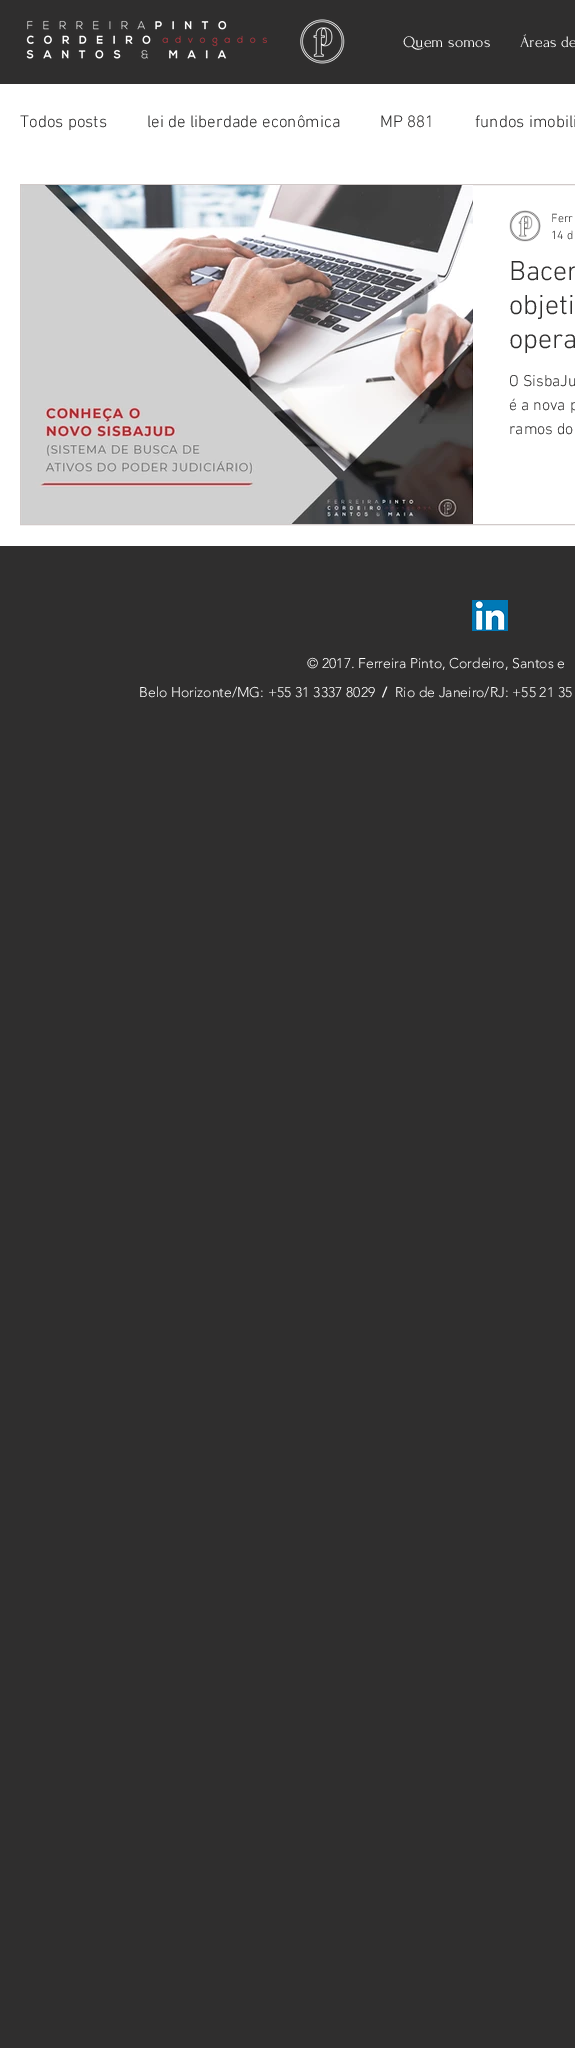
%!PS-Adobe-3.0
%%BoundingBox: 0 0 575 2048
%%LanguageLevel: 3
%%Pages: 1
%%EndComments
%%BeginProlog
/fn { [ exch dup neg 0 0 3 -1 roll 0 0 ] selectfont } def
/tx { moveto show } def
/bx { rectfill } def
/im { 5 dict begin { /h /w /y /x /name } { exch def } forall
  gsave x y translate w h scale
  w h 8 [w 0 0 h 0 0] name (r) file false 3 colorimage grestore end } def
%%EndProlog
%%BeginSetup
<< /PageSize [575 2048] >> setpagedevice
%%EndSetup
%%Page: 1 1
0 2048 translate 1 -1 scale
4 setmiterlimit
0.184 0.18 0.18 setrgbcolor
0 0 575 2048 bx
(image0.raw) 26 20 241 39 im
(image1.raw) 300 19 45 45 im
/Forum-Regular 16 fn
1 setgray
(Quem somos) 403 47 tx
(Áreas de) 520 47 tx
0 84 575 462 bx
/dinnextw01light-Light 17 fn
0.184 0.18 0.18 setrgbcolor
(Todos posts) 20 127 tx
(lei de liberdade econômica) 147 127 tx
(MP 881) 380 127 tx
(fundos imobili) 475 127 tx
0.82 0.792 0.788 setrgbcolor
20.5 184.5 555 340 rectstroke
(image2.raw) 21 185 452 339 im
(image3.raw) 509 210 32 32 im
/dinnextw01light-Light 12 fn
0.184 0.18 0.18 setrgbcolor
(Ferr) 551 222 tx
(14 d) 551 239 tx
/dinnextw01light-Light 28 fn
(Bacen) 509 280 tx
(objeti) 509 314 tx
(opera) 509 348 tx
/dinnextw01light-Light 16 fn
(O SisbaJu) 509 386 tx
(é a nova p) 509 410 tx
(ramos do) 509 434 tx
(image4.raw) 472 600 36 31 im
/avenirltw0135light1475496-Light 14 fn
1 setgray
(© 2017. Ferreira Pinto, Cordeiro, Santos e) 307 668 tx
(Belo Horizonte/MG: +55 31 3337 8029) 139 697 tx
/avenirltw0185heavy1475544-Black 14 fn
(/) 382 697 tx
/avenirltw0135light1475496-Light 14 fn
(Rio de Janeiro/RJ: +55 21 35) 395 697 tx
showpage
%%EOF
